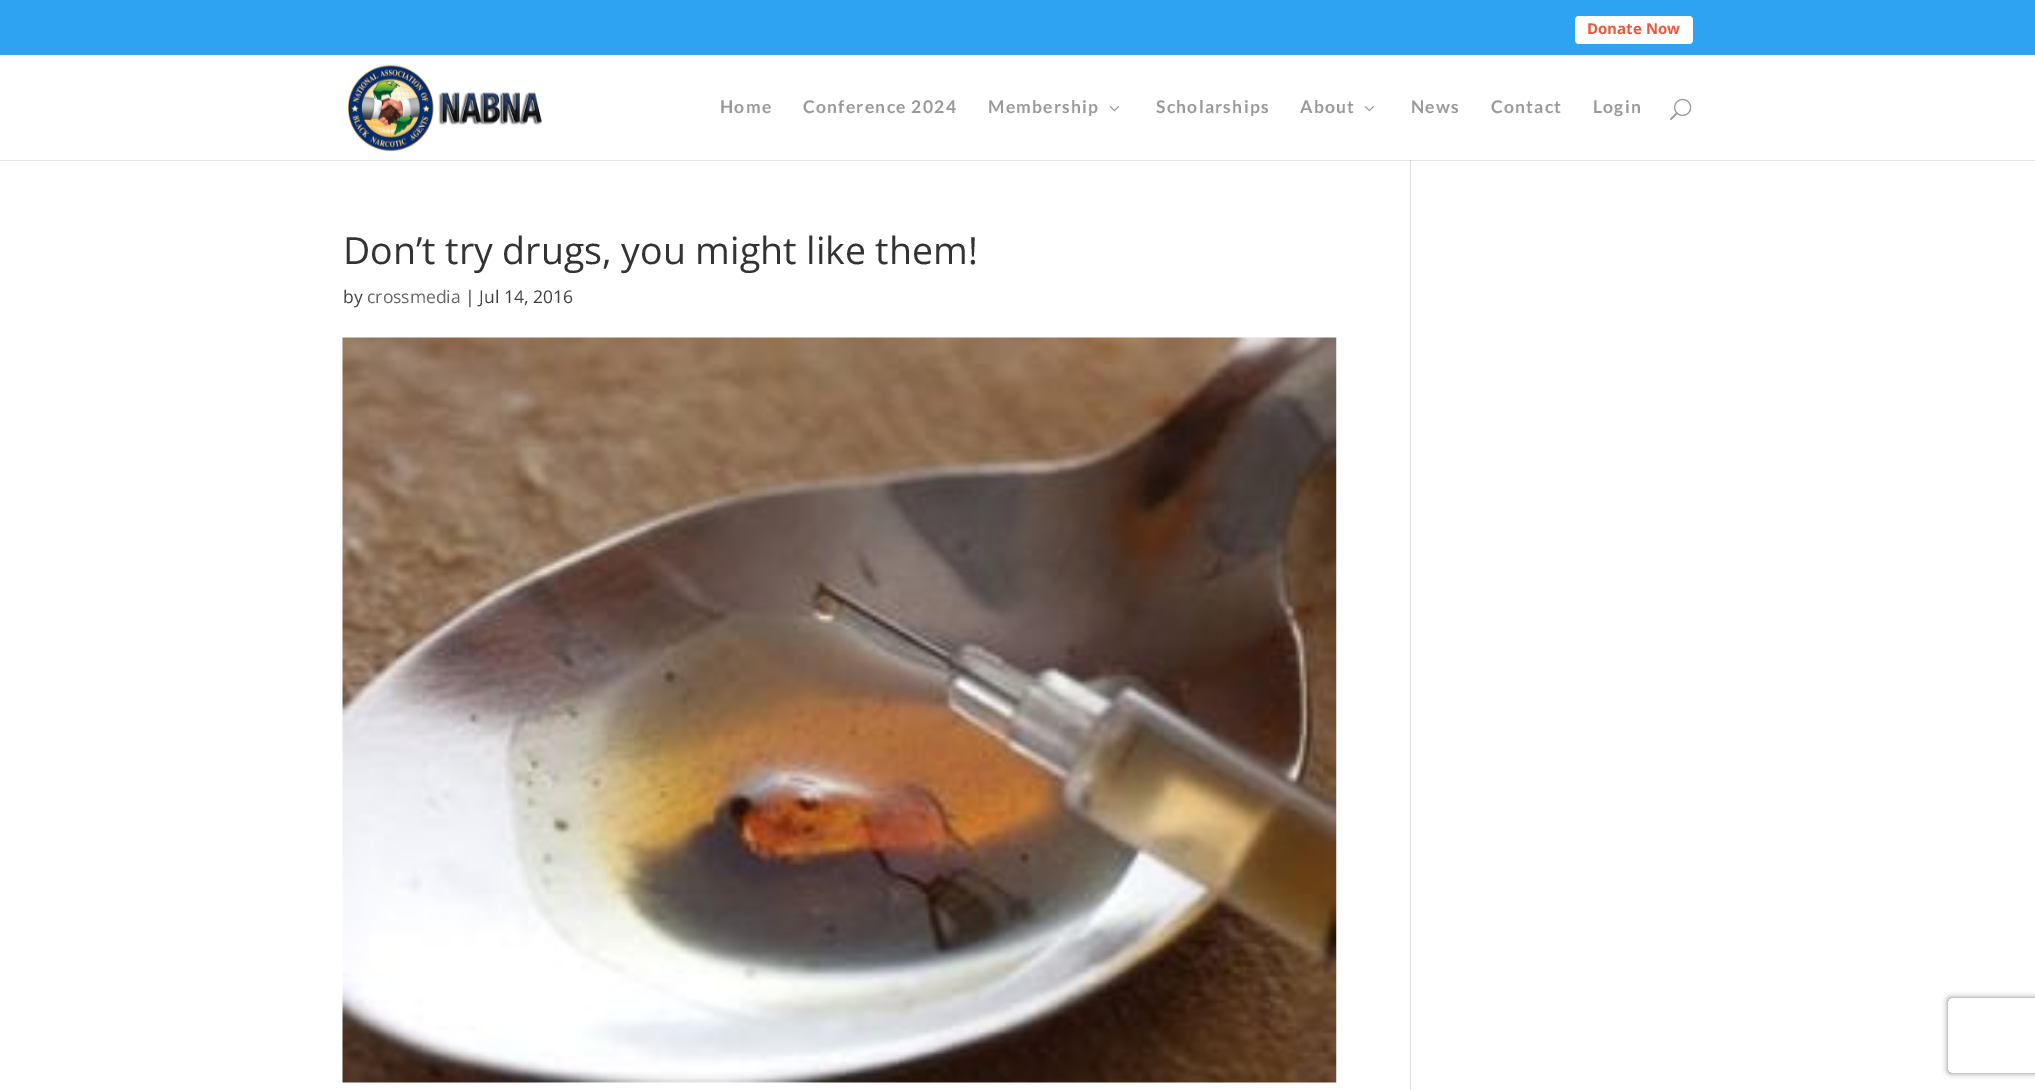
%!PS-Adobe-3.0
%%BoundingBox: 0 0 2035 1090
%%LanguageLevel: 3
%%Pages: 1
%%EndComments
%%BeginProlog
/m { moveto } bind def
/l { lineto } bind def
/c { curveto } bind def
/h { closepath } bind def
/f { fill } bind def
/q { gsave } bind def
/Q { grestore } bind def
/fn { [ exch dup neg 0 0 3 -1 roll 0 0 ] selectfont } def
/tx { moveto show } def
/bx { rectfill } def
/al { dup .setfillconstantalpha .setstrokeconstantalpha } def
/rr { 5 dict begin { /r /h /w /y /x } { exch def } forall
  x r add y moveto x w add y 2 copy h add r arct x w add y h add x 1 index r arct
  x y h add x y r arct x y 2 copy exch w add exch r arct closepath end } def
/sh { 12 dict begin { /a /b /q /h /w /y /x } { exch def } forall gsave /was 0 def
  9 -2 -9 { dup b mul 4 div /e exch def 1 sub .425 mul 2.718 exch exp 1 add a .99 .min exch div /now exch def
    1 1 now sub 1 was sub div sub al /was now def
    w h .min e 2 mul add 0 gt { x e sub y e sub w e 2 mul add h e 2 mul add
      q e add b .6 mul add w h .min 2 div e add .min 0 .max rr fill } if } for grestore end } def
/im { 5 dict begin { /h /w /y /x /name } { exch def } forall
  gsave x y translate w h scale
  w h 8 [w 0 0 h 0 0] name (r) file false 3 colorimage grestore end } def
%%EndProlog
%%BeginSetup
<< /PageSize [2035 1090] /PageUsesTransparency true >> setpagedevice
%%EndSetup
%%Page: 1 1
0 .pushpdf14devicefilter
0 1090 translate 1 -1 scale
4 setmiterlimit
1 setgray
0 0 2035 1090 bx
0.902 setgray
0 160 2035 1 bx
0.18 0.639 0.949 setrgbcolor
0 0 2035 55 bx
1 setgray
1575 16 118 28 4 rr f
/OpenSans-Bold 15 fn
0.922 0.349 0.235 setrgbcolor
(Donate Now) 1587 34 tx
0.886 setgray
1410 159 1 931 bx
1 setgray
1410 159 1 1 bx
(image0.raw) 348 64 194 88 im
/Lato-Bold 17.5 fn
0.6 setgray
720 113 m 1.25 0 (Home) ashow
803 113 m 1.25 0 (Conference 2024) ashow
988 113 m 1.25 0 (Membership) ashow
(image1.raw) 1109 106 10 6 im
1156 113 m 1.25 0 (Scholarships) ashow
1300 113 m 1.25 0 (About) ashow
(image1.raw) 1364 106 10 6 im
1411 113 m 1.25 0 (News) ashow
1491 113 m 1.25 0 (Contact) ashow
1593 113 m 1.25 0 (Login) ashow
(image2.raw) 1670 98 22 23 im
/OpenSans-Regular 37.5 fn
0.2 setgray
(Don’t try drugs, you might like them!) 343 264 tx
/OpenSans-Regular 17.5 fn
0.247 setgray
(by) 343 303 tx
0.4 setgray
(crossmedia) 367 303 tx
0.247 setgray
(| Jul 14, 2016) 465 303 tx
(image3.raw) 342 337 995 746 im
0.796 setgray
1410 160 1 1 bx
q
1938 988 m 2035 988 l 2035 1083 l 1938 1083 l h 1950.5 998 m 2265.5 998 l 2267 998 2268 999 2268 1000.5 c 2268 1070.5 l 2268 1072 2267 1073 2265.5 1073 c 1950.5 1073 l 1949 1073 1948 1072 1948 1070.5 c 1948 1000.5 l 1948 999 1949 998 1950.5 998 c h eoclip newpath
0.502 setgray
1948 998 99 75 2.5 3 1 sh
Q
.poppdf14devicefilter showpage
%%EOF
